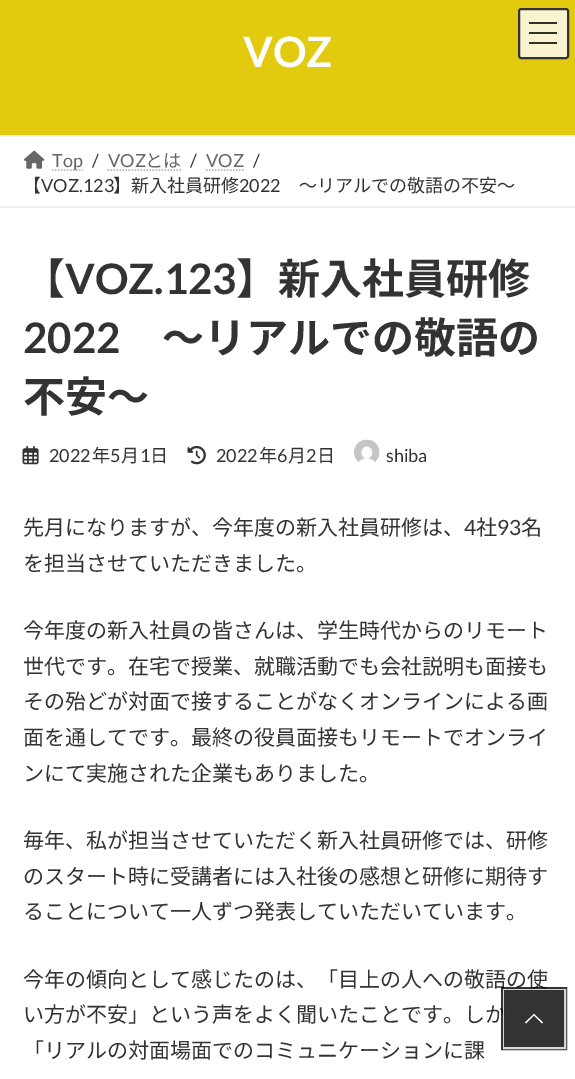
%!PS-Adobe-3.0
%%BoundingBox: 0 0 575 1079
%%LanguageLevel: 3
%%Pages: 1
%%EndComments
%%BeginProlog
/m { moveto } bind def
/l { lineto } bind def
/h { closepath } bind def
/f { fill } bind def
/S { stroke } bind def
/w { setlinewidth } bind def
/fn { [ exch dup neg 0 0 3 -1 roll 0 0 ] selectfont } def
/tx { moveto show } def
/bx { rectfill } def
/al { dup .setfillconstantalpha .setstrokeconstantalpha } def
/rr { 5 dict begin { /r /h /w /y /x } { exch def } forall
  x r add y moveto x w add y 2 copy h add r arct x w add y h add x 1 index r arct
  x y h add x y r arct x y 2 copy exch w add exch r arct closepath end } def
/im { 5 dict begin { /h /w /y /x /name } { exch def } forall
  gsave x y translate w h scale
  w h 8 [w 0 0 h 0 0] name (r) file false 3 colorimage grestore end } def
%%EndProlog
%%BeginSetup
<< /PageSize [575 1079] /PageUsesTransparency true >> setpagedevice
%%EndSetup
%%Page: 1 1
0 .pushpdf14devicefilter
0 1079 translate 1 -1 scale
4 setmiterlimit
1 setgray
0 0 575 1079 bx
0.886 0.792 0.059 setrgbcolor
0 0 575 135 bx
/Lato-Bold 42 fn
1 setgray
(VOZ) 243 67 tx
0.976 0.957 0.812 setrgbcolor
518 8 51 51 3 rr f
0.196 0.192 0.161 setrgbcolor
529 22 28 2 bx
529 32 28 2 bx
529 42 28 2 bx
0.2 setgray
2 w
519 9 49 49 2 rr S
0.941 setgray
0 135 575 2 bx
0 206 575 2 bx
(image0.raw) 24 150 21 19 im
0.702 setgray
1.5 w
[1.5 1.5] 0 setdash
52 170 m 83 170 l S
/Lato-Regular 18 fn
0.4 setgray
(Top) 52 167 tx
0.2 setgray
(/) 92 167 tx
0.4 setgray
(VOZ) 108 167 tx
0.702 setgray
107.5 170 m 181.5 170 l S
/NotoSansJP-Regular 18 fn
0.4 setgray
(とは) 145 167 tx
/Lato-Regular 18 fn
0.2 setgray
(/) 190 167 tx
0.4 setgray
(VOZ) 206 167 tx
0.702 setgray
206 170 m 244 170 l S
0.2 setgray
(/) 253 167 tx
/NotoSansJP-Regular 18 fn
(【) 23 192 tx
/Lato-Regular 18 fn
(VOZ.123) 41 192 tx
/NotoSansJP-Regular 18 fn
(】新入社員研修) 113 192 tx
/Lato-Regular 18 fn
(2022) 239 192 tx
/NotoSansJP-Regular 18 fn
(～リアルでの敬語の不安～) 299 192 tx
/NotoSansJP-Bold 42 fn
(【) 23 294 tx
/Lato-Bold 42 fn
(VOZ.123) 65 294 tx
/NotoSansJP-Bold 42 fn
(】新入社員研修) 236 294 tx
/Lato-Bold 42 fn
(2022) 23 353 tx
/NotoSansJP-Bold 42 fn
(～リアルでの敬語の) 162 353 tx
(不安～) 23 412 tx
(image1.raw) 22 446 17 19 im
/Lato-Regular 18 fn
(2022) 49 462 tx
/NotoSansJP-Regular 18 fn
(年) 92 462 tx
/Lato-Regular 18 fn
(5) 110 462 tx
/NotoSansJP-Regular 18 fn
(月) 121 462 tx
/Lato-Regular 18 fn
(1) 140 462 tx
/NotoSansJP-Regular 18 fn
(日) 150 462 tx
(image2.raw) 187 445 19 20 im
/Lato-Regular 18 fn
(2022) 216 462 tx
/NotoSansJP-Regular 18 fn
(年) 259 462 tx
/Lato-Regular 18 fn
(6) 277 462 tx
/NotoSansJP-Regular 18 fn
(月) 288 462 tx
/Lato-Regular 18 fn
(2) 306 462 tx
/NotoSansJP-Regular 18 fn
(日) 317 462 tx
(image3.raw) 354 439 26 23 im
/Lato-Regular 18 fn
(shiba) 386 462 tx
/NotoSansJP-Regular 21 fn
(先月になりますが、今年度の新入社員研修は、) 23 535 tx
/Lato-Regular 21 fn
(4) 464 535 tx
/NotoSansJP-Regular 21 fn
(社) 476 535 tx
/Lato-Regular 21 fn
(93) 497 535 tx
/NotoSansJP-Regular 21 fn
(名) 521 535 tx
(を担当させていただきました。) 23 571 tx
(今年度の新入社員の皆さんは、学生時代からのリモート) 23 638 tx
(世代です。在宅で授業、就職活動でも会社説明も面接も) 23 674 tx
(その殆どが対面で接することがなくオンラインによる画) 23 709 tx
(面を通してです。最終の役員面接もリモートでオンライ) 23 745 tx
(ンにて実施された企業もありました。) 23 781 tx
(毎年、私が担当させていただく新入社員研修では、研修) 23 848 tx
(のスタート時に受講者には入社後の感想と研修に期待す) 23 884 tx
(ることについて一人ずつ発表していただいています。) 23 919 tx
(今年の傾向として感じたのは、「目上の人への敬語の使) 23 987 tx
(い方が不安」という声をよく聞いたことです。しか) 23 1022 tx
(「リアルの対面場面でのコミュニケーションに課) 23 1058 tx
0.8 al
0 setgray
3 w
[] 0 setdash
502.5 988.5 63 60 rectstroke
1 setgray
2 w
504 990 61 58 rectstroke
0 setgray
504 990 60 57 bx
1 al
1 setgray
543 1022.5 m 542 1023.5 l 534 1015.5 l 526 1023.5 l 525 1022.5 l 534 1014 l h f
.poppdf14devicefilter showpage
%%EOF
